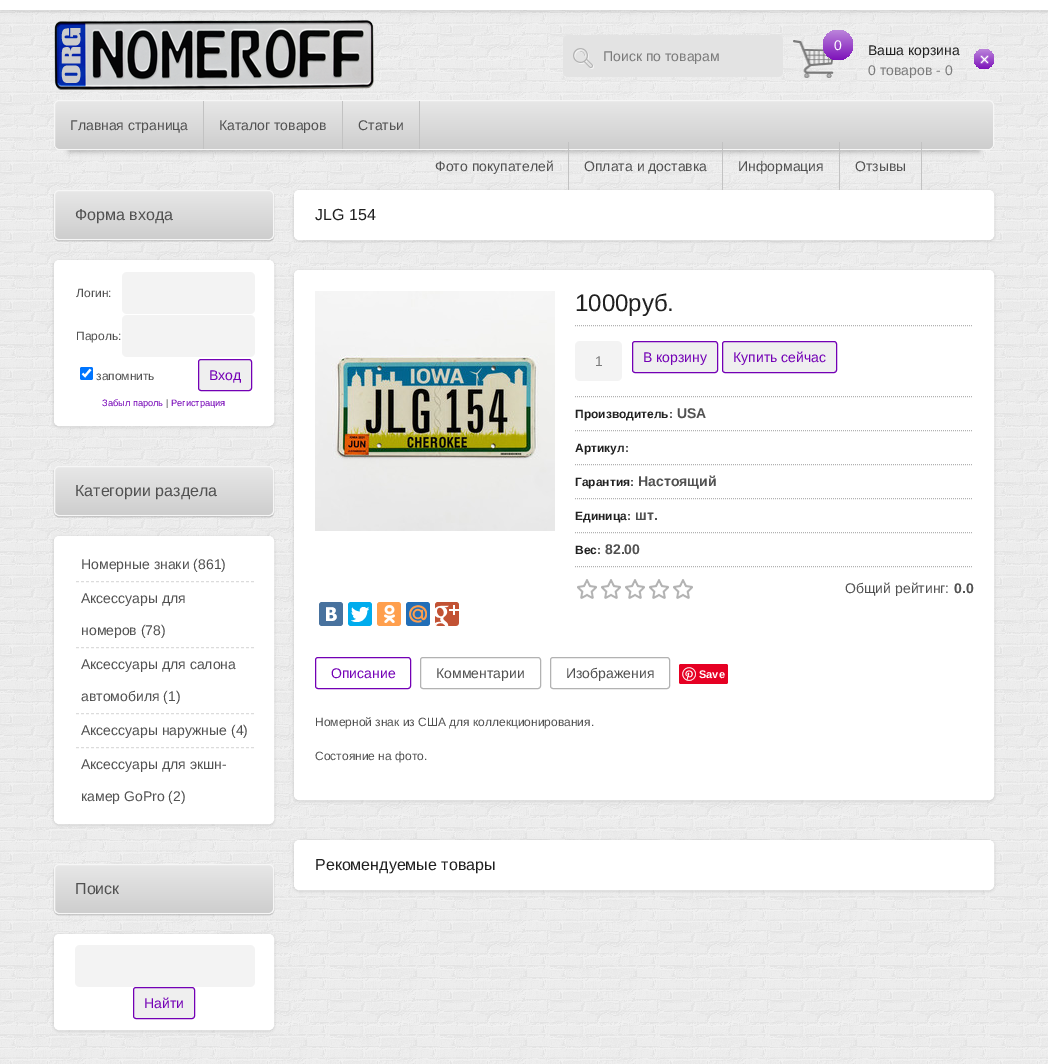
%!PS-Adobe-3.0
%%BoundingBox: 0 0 1048 1064
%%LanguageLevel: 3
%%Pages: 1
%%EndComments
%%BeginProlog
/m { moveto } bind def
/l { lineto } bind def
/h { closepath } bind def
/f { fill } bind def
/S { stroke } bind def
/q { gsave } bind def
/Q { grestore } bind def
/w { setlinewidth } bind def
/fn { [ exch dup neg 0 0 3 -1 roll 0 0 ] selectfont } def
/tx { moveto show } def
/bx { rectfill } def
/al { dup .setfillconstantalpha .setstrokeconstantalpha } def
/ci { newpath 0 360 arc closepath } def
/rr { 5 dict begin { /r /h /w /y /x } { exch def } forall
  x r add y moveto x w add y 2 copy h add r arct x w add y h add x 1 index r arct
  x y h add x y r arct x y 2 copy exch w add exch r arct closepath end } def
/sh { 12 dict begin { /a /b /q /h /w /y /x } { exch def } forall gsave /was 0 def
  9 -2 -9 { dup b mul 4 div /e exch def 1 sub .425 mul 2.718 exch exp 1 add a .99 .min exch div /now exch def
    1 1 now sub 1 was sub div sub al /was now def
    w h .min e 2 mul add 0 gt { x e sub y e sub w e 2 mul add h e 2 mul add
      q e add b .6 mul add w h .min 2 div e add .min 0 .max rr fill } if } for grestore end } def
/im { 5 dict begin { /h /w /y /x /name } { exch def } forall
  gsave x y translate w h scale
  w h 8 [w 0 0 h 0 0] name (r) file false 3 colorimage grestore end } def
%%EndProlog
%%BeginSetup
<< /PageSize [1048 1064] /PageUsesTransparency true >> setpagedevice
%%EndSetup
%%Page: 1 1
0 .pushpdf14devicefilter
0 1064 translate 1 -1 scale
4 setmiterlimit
1 setgray
0 0 1048 1064 bx
(image0.raw) 0 10 1048 1054 im
0 setgray
0 2 1048 10 0 2 0.1 sh
1 setgray
0 0 1048 10 bx
(image1.raw) 54 20 320 70 im
0.89 setgray
563 35 220 42 5 rr f
(image2.raw) 573 48 21 21 im
/LiberationSans-Regular 14 fn
0.478 setgray
(Поиск по товарам) 603 61 tx
(image3.raw) 793 40 41 38 im
q 838 45 15 ci clip newpath
<< /ShadingType 2 /ColorSpace /DeviceRGB /Coords [838 30 838 60] /Extend [true true] /Function << /FunctionType 2 /Domain [0 1] /C0 [0.737 0.522 0.859] /C1 [0.49 0.071 0.729] /N 1 >> >> shfill Q
1 setgray
(0) 834 50 tx
0.129 setgray
(Ваша корзина) 868 55 tx
0.478 setgray
(0 товаров - 0) 868 75 tx
q 984 59 10 ci clip newpath
<< /ShadingType 2 /ColorSpace /DeviceRGB /Coords [984 49 984 69] /Extend [true true] /Function << /FunctionType 2 /Domain [0 1] /C0 [0.737 0.522 0.859] /C1 [0.49 0.071 0.729] /N 1 >> >> shfill Q
(image4.raw) 980 55 9 9 im
0 setgray
69 146 910 4 2 3 0.5 sh
q
54 100 940 50 5 rr clip newpath
q 54 101 m 994 101 l 994 149 l 54 149 l h clip newpath
<< /ShadingType 2 /ColorSpace /DeviceRGB /Coords [524 101 524 149] /Extend [true true] /Function << /FunctionType 2 /Domain [0 1] /C0 [0.906 0.906 0.906] /C1 [0.808 0.808 0.808] /N 1 >> >> shfill Q
Q
0.965 setgray
54.5 100.5 939 49 4.5 rr S
0.761 setgray
203 101 1 48 bx
0.318 setgray
(Главная страница) 70 130 tx
0.761 setgray
342 101 1 48 bx
0.318 setgray
(Каталог товаров) 219 130 tx
0.761 setgray
419 101 1 48 bx
0.318 setgray
(Статьи) 358 130 tx
0 setgray
294 191 700 50 5 1.5 0.15 sh
0.761 setgray
568 142 1 48 bx
0.318 setgray
(Фото покупателей) 435 171 tx
0.761 setgray
722 142 1 48 bx
0.318 setgray
(Оплата и доставка) 584 171 tx
0.761 setgray
839 142 1 48 bx
0.318 setgray
(Информация) 738 171 tx
0.761 setgray
921 142 1 48 bx
0.318 setgray
(Отзывы) 855 171 tx
0 setgray
54 191 220 50 5 0.5 0.25 sh
q
54 190 220 50 5 rr clip newpath
q 54 191 m 274 191 l 274 239 l 54 239 l h clip newpath
<< /ShadingType 2 /ColorSpace /DeviceRGB /Coords [164 191 164 239] /Extend [true true] /Function << /FunctionType 2 /Domain [0 1] /C0 [0.906 0.906 0.906] /C1 [0.808 0.808 0.808] /N 1 >> >> shfill Q
Q
0.965 setgray
54.5 190.5 219 49 4.5 rr S
/LiberationSans-Regular 16 fn
0.318 setgray
(Форма входа) 75 220 tx
0 setgray
54 261 220 166 5 1.5 0.15 sh
1 setgray
54.5 260.5 219 165 4.5 rr q f Q
S
/LiberationSans-Regular 12 fn
0.318 setgray
(Логин:) 76 297 tx
0.953 setgray
122 272 133 42 5 rr f
0.318 setgray
(Пароль:) 76 340 tx
0.953 setgray
122 315 133 42 5 rr f
0 0.459 1 setrgbcolor
80 367 13 13 2 rr f
1 setgray
2.1 w
82.5 373.5 m 85 376 l 90.5 369.5 l S
0.318 setgray
(запомнить) 96 380 tx
0.937 setgray
198.5 359.5 53 31 2.5 rr q f Q
0.451 0 0.71 setrgbcolor
1 w
S
/LiberationSans-Regular 14 fn
(Вход) 209 380 tx
/LiberationSans-Regular 9.25 fn
(Забыл пароль) 102 406 tx
0.318 setgray
(|) 166 406 tx
0.451 0 0.71 setrgbcolor
(Регистрация) 171 406 tx
0 setgray
54 467 220 50 5 0.5 0.25 sh
q
54 466 220 50 5 rr clip newpath
q 54 467 m 274 467 l 274 515 l 54 515 l h clip newpath
<< /ShadingType 2 /ColorSpace /DeviceRGB /Coords [164 467 164 515] /Extend [true true] /Function << /FunctionType 2 /Domain [0 1] /C0 [0.906 0.906 0.906] /C1 [0.808 0.808 0.808] /N 1 >> >> shfill Q
Q
0.965 setgray
54.5 466.5 219 49 4.5 rr S
/LiberationSans-Regular 16 fn
0.318 setgray
(Категории раздела) 75 496 tx
0 setgray
54 537 220 288 5 1.5 0.15 sh
1 setgray
54.5 536.5 219 287 4.5 rr q f Q
S
/LiberationSans-Regular 14 fn
0.318 setgray
(Номерные знаки \(861\)) 81 569 tx
0.863 setgray
[3 2] 0 setdash
76 581.5 m 254 581.5 l S
0.318 setgray
(Аксессуары для) 81 603 tx
(номеров \(78\)) 81 635 tx
0.863 setgray
76 647.5 m 254 647.5 l S
0.318 setgray
(Аксессуары для салона) 81 669 tx
(автомобиля \(1\)) 81 701 tx
0.863 setgray
76 713.5 m 254 713.5 l S
0.318 setgray
(Аксессуары наружные \(4\)) 81 735 tx
0.863 setgray
76 747.5 m 254 747.5 l S
0.318 setgray
(Аксессуары для экшн-) 81 769 tx
(камер GoPro \(2\)) 81 801 tx
0 setgray
54 865 220 50 5 0.5 0.25 sh
q
54 864 220 50 5 rr clip newpath
q 54 865 m 274 865 l 274 913 l 54 913 l h clip newpath
<< /ShadingType 2 /ColorSpace /DeviceRGB /Coords [164 865 164 913] /Extend [true true] /Function << /FunctionType 2 /Domain [0 1] /C0 [0.906 0.906 0.906] /C1 [0.808 0.808 0.808] /N 1 >> >> shfill Q
Q
0.965 setgray
[] 0 setdash
54.5 864.5 219 49 4.5 rr S
/LiberationSans-Regular 16 fn
0.318 setgray
(Поиск) 75 894 tx
0 setgray
54 935 220 96 5 1.5 0.15 sh
1 setgray
54.5 934.5 219 95 4.5 rr q f Q
S
0.953 setgray
75 945 180 42 5 rr f
0.937 setgray
133.5 987.5 61 31 2.5 rr q f Q
0.451 0 0.71 setrgbcolor
S
/LiberationSans-Regular 14 fn
(Найти) 144 1008 tx
1 setgray
294.5 190.5 699 49 4.5 rr q f Q
S
/LiberationSans-Regular 16 fn
0.129 setgray
(JLG 154) 315 220 tx
0 setgray
294 271 700 530 5 1.5 0.15 sh
1 setgray
294.5 270.5 699 529 4.5 rr q f Q
S
(image5.raw) 315 291 240 240 im
0.698 setgray
[1 1] 0 setdash
575 325.5 m 973 325.5 l S
/LiberationSans-Regular 24 fn
0.129 setgray
(1000руб.) 575 311 tx
0.698 setgray
575 396.5 m 973 396.5 l S
0.953 setgray
575 341 47 40 5 rr f
/LiberationSans-Regular 14 fn
0.478 setgray
(1) 595 366 tx
0.937 setgray
632.5 341.5 85 31 2.5 rr q f Q
0.451 0 0.71 setrgbcolor
[] 0 setdash
S
(В корзину) 643 362 tx
0.937 setgray
722.5 341.5 114 31 2.5 rr q f Q
0.451 0 0.71 setrgbcolor
S
(Купить сейчас) 733 362 tx
0.698 setgray
[1 1] 0 setdash
575 430.5 m 973 430.5 l S
/LiberationSans-Bold 12 fn
0.129 setgray
(Производитель:) 575 418 tx
/LiberationSans-Bold 14 fn
0.318 setgray
(USA) 677 418 tx
0.698 setgray
575 464.5 m 973 464.5 l S
/LiberationSans-Bold 12 fn
0.129 setgray
(Артикул:) 575 452 tx
0.698 setgray
575 498.5 m 973 498.5 l S
0.129 setgray
(Гарантия:) 575 486 tx
/LiberationSans-Bold 14 fn
0.318 setgray
(Настоящий) 638 486 tx
0.698 setgray
575 532.5 m 973 532.5 l S
/LiberationSans-Bold 12 fn
0.129 setgray
(Единица:) 575 520 tx
/LiberationSans-Bold 14 fn
0.318 setgray
(шт.) 635 520 tx
0.698 setgray
575 566.5 m 973 566.5 l S
/LiberationSans-Bold 12 fn
0.129 setgray
(Вес:) 575 554 tx
/LiberationSans-Bold 14 fn
0.318 setgray
(82.00) 605 554 tx
(image6.raw) 577 579 116 20 im
/LiberationSans-Regular 14 fn
(Общий рейтинг:) 845 593 tx
/LiberationSans-Bold 14 fn
(0.0) 954 593 tx
0.282 0.447 0.62 setrgbcolor
319 602 24 24 3 rr f
(image7.raw) 326 607 11 14 im
0 0.675 0.929 setrgbcolor
348 602 24 24 3 rr f
(image8.raw) 351 607 18 15 im
1 0.624 0.302 setrgbcolor
377 602 24 24 3 rr f
(image9.raw) 384 605 11 18 im
0.133 0.431 0.718 setrgbcolor
406 602 24 24 3 rr f
(image10.raw) 409 605 18 18 im
0.761 0.322 0.204 setrgbcolor
435 602 24 24 3 rr f
(image11.raw) 435 605 24 21 im
0.451 0 0.71 setrgbcolor
[] 0 setdash
315.5 657.5 95 31 2.5 rr S
/LiberationSans-Regular 14 fn
(Описание) 331 678 tx
0.698 setgray
420.5 657.5 120 31 2.5 rr S
0.318 setgray
(Комментарии) 436 678 tx
0.698 setgray
550.5 657.5 119 31 2.5 rr S
0.318 setgray
(Изображения) 566 678 tx
0.902 0 0.137 setrgbcolor
679 664 49 20 2 rr f
(image12.raw) 682 667 14 14 im
/LiberationSans-Bold 11 fn
1 setgray
(Save) 699 678 tx
/LiberationSans-Regular 12 fn
0.318 setgray
(Номерной знак из США для коллекционирования.) 315 726 tx
(Состояние на фото.) 315 760 tx
0 setgray
294 841 700 50 5 1.5 0.15 sh
1 setgray
294.5 840.5 699 49 4.5 rr q f Q
S
/LiberationSans-Regular 16 fn
0.129 setgray
(Рекомендуемые товары) 315 870 tx
.poppdf14devicefilter showpage
%%EOF
